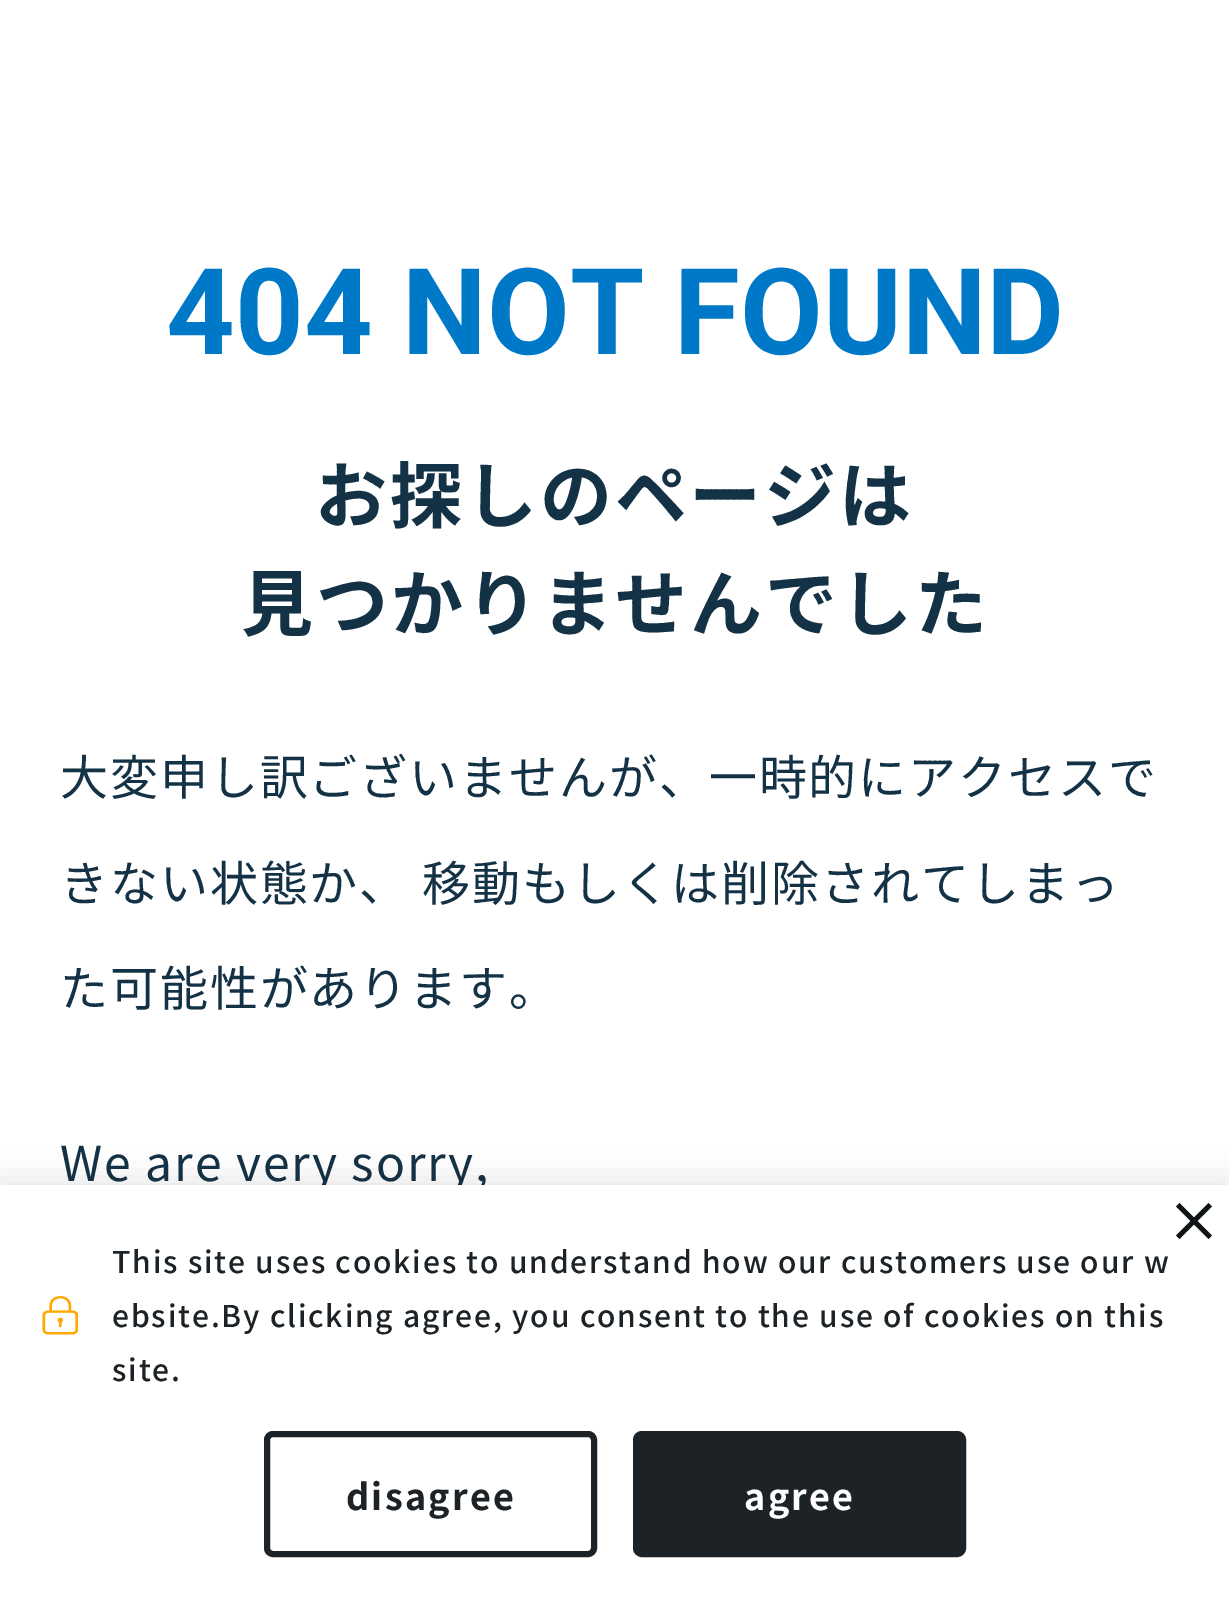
%!PS-Adobe-3.0
%%BoundingBox: 0 0 1229 1603
%%LanguageLevel: 3
%%Pages: 1
%%EndComments
%%BeginProlog
/m { moveto } bind def
/l { lineto } bind def
/h { closepath } bind def
/f { fill } bind def
/S { stroke } bind def
/q { gsave } bind def
/Q { grestore } bind def
/w { setlinewidth } bind def
/fn { [ exch dup neg 0 0 3 -1 roll 0 0 ] selectfont } def
/tx { moveto show } def
/bx { rectfill } def
/al { dup .setfillconstantalpha .setstrokeconstantalpha } def
/rr { 5 dict begin { /r /h /w /y /x } { exch def } forall
  x r add y moveto x w add y 2 copy h add r arct x w add y h add x 1 index r arct
  x y h add x y r arct x y 2 copy exch w add exch r arct closepath end } def
/sh { 12 dict begin { /a /b /q /h /w /y /x } { exch def } forall gsave /was 0 def
  9 -2 -9 { dup b mul 4 div /e exch def 1 sub .425 mul 2.718 exch exp 1 add a .99 .min exch div /now exch def
    1 1 now sub 1 was sub div sub al /was now def
    w h .min e 2 mul add 0 gt { x e sub y e sub w e 2 mul add h e 2 mul add
      q e add b .6 mul add w h .min 2 div e add .min 0 .max rr fill } if } for grestore end } def
/im { 5 dict begin { /h /w /y /x /name } { exch def } forall
  gsave x y translate w h scale
  w h 8 [w 0 0 h 0 0] name (r) file false 3 colorimage grestore end } def
%%EndProlog
%%BeginSetup
<< /PageSize [1229 1603] /PageUsesTransparency true >> setpagedevice
%%EndSetup
%%Page: 1 1
0 .pushpdf14devicefilter
0 1603 translate 1 -1 scale
4 setmiterlimit
1 setgray
0 0 1229 1603 bx
/Roboto-Bold 120 fn
0 0.471 0.784 setrgbcolor
(404 NOT FOUND) 166 354 tx
/NotoSansJP-Bold 72 fn
0.078 0.196 0.275 setrgbcolor
315 522 m 2.9 0 (お探しのページは) ashow
241 630 m 2.9 0 (見つかりませんでした) ashow
/NotoSansJP-Regular 48 fn
60 795 m 1.9 0 (大変申し訳ございませんが、一時的にアクセスで) ashow
60 901 m 1.9 0 (きない状態か、 移動もしくは削除されてしまっ) ashow
60 1006 m 1.9 0 (た可能性があります。) ashow
60 1181 m 1.9 0 (We are very sorry,) ashow
0 setgray
0 1179 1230 420 0 15 0.1 sh
1 setgray
0 1185 1229 418 bx
0.055 0.075 0.082 setrgbcolor
1179.5 1203 m 1212 1235.5 l 1208.5 1239 l 1176 1206.5 l h f
1176 1235.5 m 1208.5 1203 l 1212 1206.5 l 1179.5 1239 l h f
(image0.raw) 42 1296 36 39 im
/NotoSansJP-Medium 30 fn
0.11 0.133 0.149 setrgbcolor
112 1273 m 1.8 0 (This site uses cookies to understand how our customers use our w) ashow
112 1327 m 1.8 0 (ebsite.By clicking agree, you consent to the use of cookies on this) ashow
112 1381 m 1.8 0 (site.) ashow
6 w
267 1434 327 120 6 rr S
/NotoSansJP-Bold 36 fn
346 1510 m 2.25 0 (disagree) ashow
636 1434 327 120 6 rr q f Q
S
1 setgray
744 1510 m 2.25 0 (agree) ashow
.poppdf14devicefilter showpage
%%EOF
